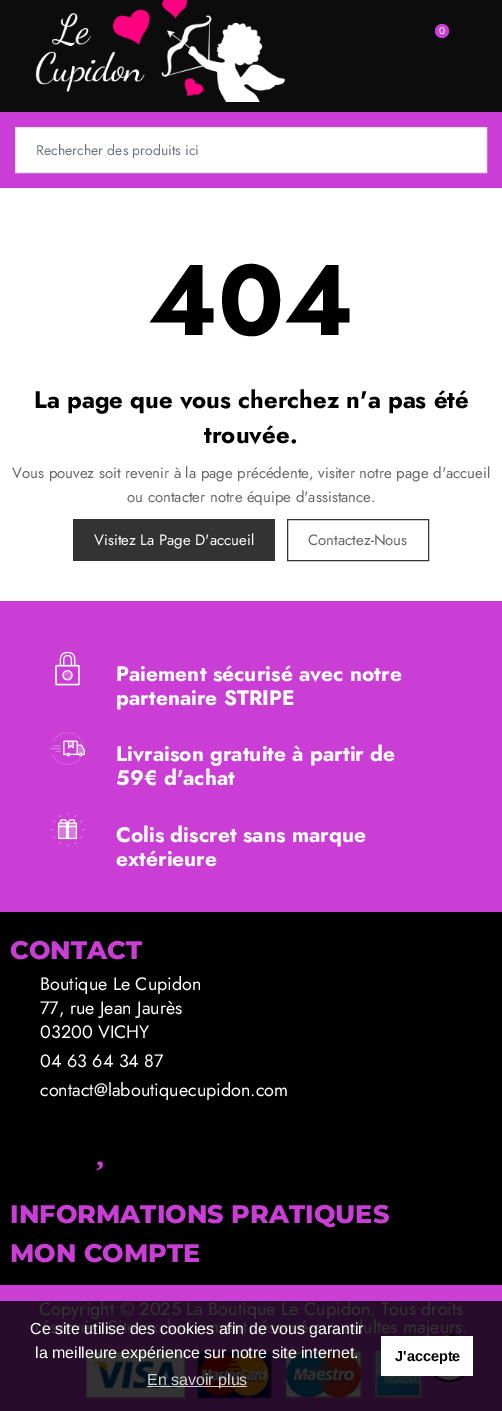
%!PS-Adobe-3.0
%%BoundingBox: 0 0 502 1411
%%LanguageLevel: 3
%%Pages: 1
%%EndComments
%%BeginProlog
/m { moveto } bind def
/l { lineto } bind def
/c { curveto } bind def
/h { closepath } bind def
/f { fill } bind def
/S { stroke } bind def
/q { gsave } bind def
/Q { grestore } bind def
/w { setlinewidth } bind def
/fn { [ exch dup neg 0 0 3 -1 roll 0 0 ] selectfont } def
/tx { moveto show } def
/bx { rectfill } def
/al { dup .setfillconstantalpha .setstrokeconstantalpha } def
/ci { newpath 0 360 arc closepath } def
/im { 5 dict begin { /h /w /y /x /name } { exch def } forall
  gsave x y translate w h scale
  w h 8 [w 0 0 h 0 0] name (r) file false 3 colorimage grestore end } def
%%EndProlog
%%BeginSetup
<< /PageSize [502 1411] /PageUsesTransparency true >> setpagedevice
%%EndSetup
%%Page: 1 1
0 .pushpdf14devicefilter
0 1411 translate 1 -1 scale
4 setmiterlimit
1 setgray
0 0 502 1411 bx
0.047 setgray
0 0 502 112 bx
(image0.raw) 35 0 250 102 im
0.792 0.243 0.839 setrgbcolor
442 31 7 ci f
/Jost-Regular 10 fn
1 setgray
(0) 439 34 tx
0.792 0.243 0.839 setrgbcolor
0 112 502 76 bx
1 setgray
15.5 127.5 m 486.5 127.5 l 486.5 172.5 l 15.5 172.5 l h q f Q
0.898 setgray
S
/Jost-Regular 14 fn
0.424 0.459 0.49 setrgbcolor
(Rechercher des produits ici) 36 155 tx
/Jost-Bold 100 fn
0 setgray
(404) 148 335 tx
/Jost-Bold 24 fn
(La page que vous cherchez n'a pas été) 34 408 tx
(trouvée.) 204 443 tx
/Jost-Regular 15 fn
0.4 setgray
(Vous pouvez soit revenir à la page précédente, visiter notre page d'accueil) 12 478 tx
(ou contacter notre équipe d'assistance.) 127 502 tx
0.2 setgray
73 519 202 42 bx
1 setgray
(Visitez La Page D'accueil) 94 545 tx
0.2 setgray
287.5 519.5 141 41 rectstroke
0.4 setgray
(Contactez-Nous) 308 545 tx
0.792 0.243 0.839 setrgbcolor
0 601 502 311 bx
(image1.raw) 55 651 25 35 im
/Jost-Bold 21 fn
1 setgray
(Paiement sécurisé avec notre) 116 681 tx
(partenaire STRIPE) 116 705 tx
(image2.raw) 50 732 35 33 im
(Livraison gratuite à partir de) 116 761 tx
(59€ d'achat) 116 785 tx
(image3.raw) 50 812 35 35 im
(Colis discret sans marque) 116 842 tx
(extérieure) 116 866 tx
0 setgray
0 912 502 373 bx
/Montserrat-ExtraBold 25.5 fn
0.792 0.243 0.839 setrgbcolor
(CONTACT) 10 959 tx
/Jost-Regular 18 fn
1 setgray
(Boutique Le Cupidon) 40 990 tx
(77, rue Jean Jaurès) 40 1014 tx
(03200 VICHY) 40 1038 tx
(04 63 64 34 87) 40 1067 tx
(contact@laboutiquecupidon.com) 40 1096 tx
(image4.raw) 96 1161 7 10 im
/Montserrat-ExtraBold 25.5 fn
0.792 0.243 0.839 setrgbcolor
(INFORMATIONS PRATIQUES) 10 1223 tx
(MON COMPTE) 10 1262 tx
0 1285 502 16 bx
0.157 0.047 0.169 setrgbcolor
0 1301 502 110 bx
/Jost-Regular 18 fn
0.2 setgray
(Copyright © 2025 La Boutique Le Cupidon. Tous droits) 39 1315 tx
(réservés. Site exclusivement réservé aux adultes majeurs.) 35 1333 tx
(image5.raw) 86 1350 336 49 im
/LiberationSans-Regular 16 fn
1 setgray
(Ce site utilise des cookies afin de vous garantir) 30 1334 tx
(la meilleure expérience sur notre site internet.) 35 1358 tx
0.8 al
147 1386 100 1 bx
1 al
0.827 0.82 0.824 setrgbcolor
(En savoir plus) 147 1385 tx
0.2 setgray
449 1358 22.5 ci q f Q
0.18 setgray
S
0.027 setgray
1.9 w
449 1335 m 461.5 1335 472 1345.5 472 1358 c 472 1370.5 461.5 1381 449 1381 c 436.5 1381 426 1370.5 426 1358 c 426 1354 427 1350.5 428.5 1347 c S
1 setgray
381 1336 92 40 bx
/LiberationSans-Bold 14.5 fn
0 setgray
(J'accepte) 395 1361 tx
.poppdf14devicefilter showpage
%%EOF
